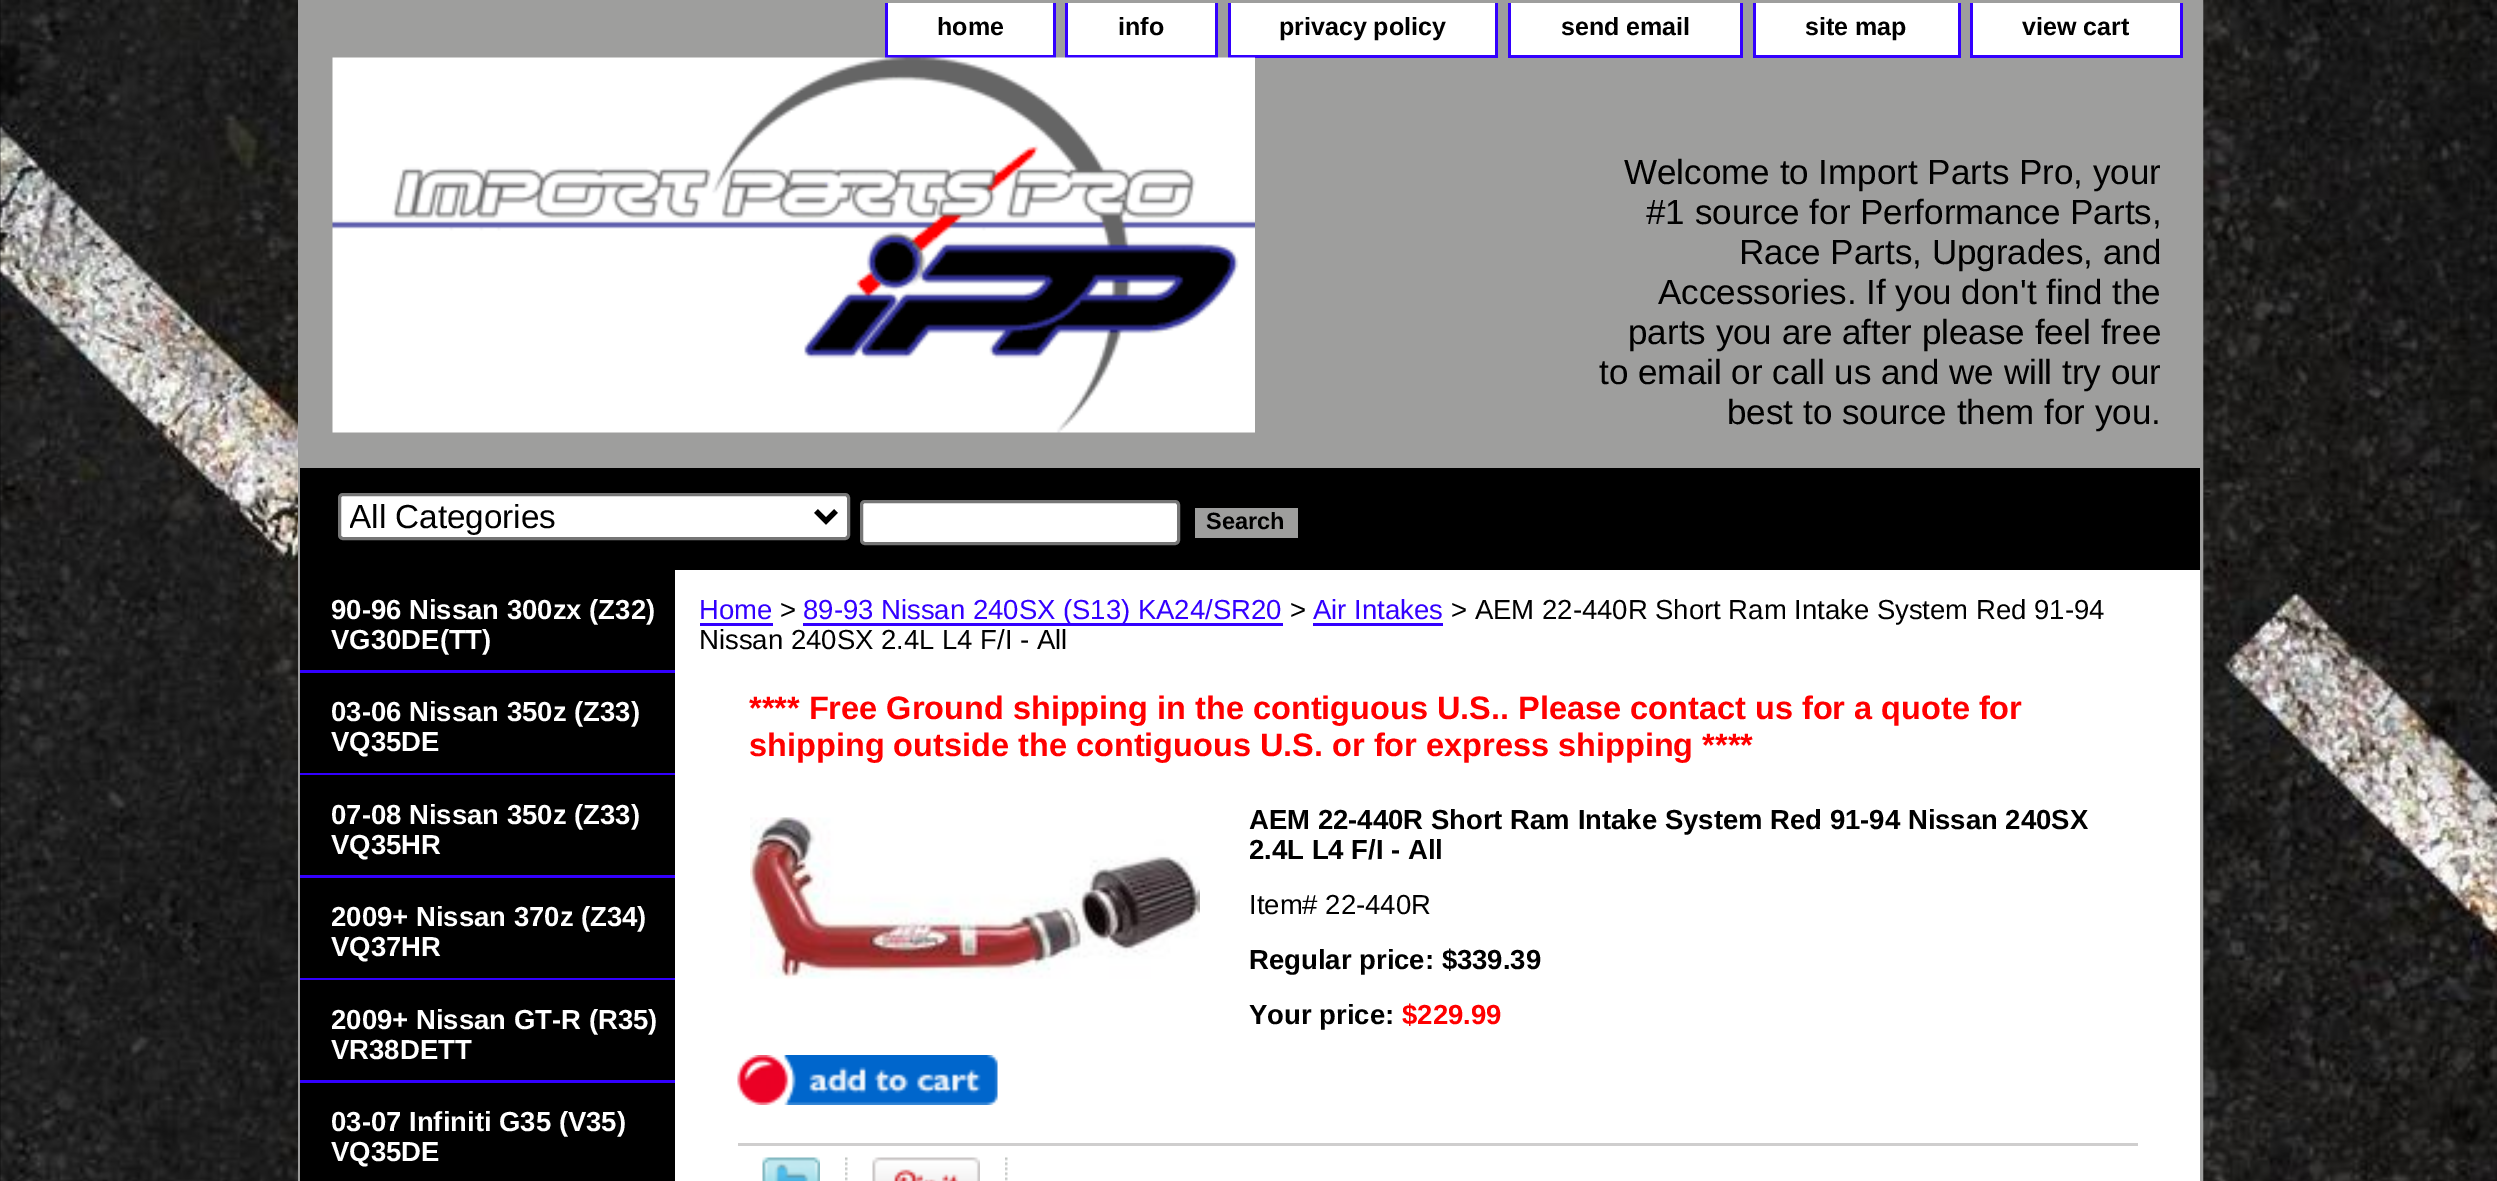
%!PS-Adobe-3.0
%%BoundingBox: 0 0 2497 1181
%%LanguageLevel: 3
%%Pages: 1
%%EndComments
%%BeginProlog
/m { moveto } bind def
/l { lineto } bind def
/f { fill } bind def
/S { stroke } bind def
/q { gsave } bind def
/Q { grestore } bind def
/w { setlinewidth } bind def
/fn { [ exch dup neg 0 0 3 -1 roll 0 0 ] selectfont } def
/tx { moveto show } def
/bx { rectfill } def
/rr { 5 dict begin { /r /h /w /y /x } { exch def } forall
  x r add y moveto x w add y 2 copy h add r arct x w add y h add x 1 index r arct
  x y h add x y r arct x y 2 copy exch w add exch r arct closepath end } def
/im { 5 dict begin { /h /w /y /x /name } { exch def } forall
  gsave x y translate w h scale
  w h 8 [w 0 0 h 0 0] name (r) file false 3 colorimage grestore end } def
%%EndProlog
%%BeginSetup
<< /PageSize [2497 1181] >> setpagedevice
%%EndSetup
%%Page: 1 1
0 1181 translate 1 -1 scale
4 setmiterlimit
1 setgray
0 0 2497 1181 bx
(image0.raw) 0 0 2497 1181 im
0.62 0.62 0.616 setrgbcolor
3 w
299.5 1.5 1902 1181 rectstroke
301 3 1899 465 bx
1 setgray
888 3 165 52 bx
0.2 0 1 setrgbcolor
1053 3 3 55 bx
885 55 170 3 bx
885 3 3 55 bx
/LiberationSans-Bold 25 fn
0 setgray
(home) 937 35 tx
1 setgray
1068 3 147 52 bx
0.2 0 1 setrgbcolor
1215 3 3 55 bx
1065 55 153 3 bx
1065 3 3 55 bx
0 setgray
(info) 1118 35 tx
1 setgray
1231 3 264 52 bx
0.2 0 1 setrgbcolor
1495 3 3 55 bx
1228 55 270 3 bx
1228 3 3 55 bx
0 setgray
(privacy policy) 1279 35 tx
1 setgray
1511 3 229 52 bx
0.2 0 1 setrgbcolor
1740 3 3 55 bx
1508 55 235 3 bx
1508 3 3 55 bx
0 setgray
(send email) 1561 35 tx
1 setgray
1756 3 202 52 bx
0.2 0 1 setrgbcolor
1958 3 3 55 bx
1753 55 207 3 bx
1753 3 3 55 bx
0 setgray
(site map) 1805 35 tx
1 setgray
1973 3 207 52 bx
0.2 0 1 setrgbcolor
2180 3 3 55 bx
1970 55 213 3 bx
1970 3 3 55 bx
0 setgray
(view cart) 2022 35 tx
(image1.raw) 332 57 923 376 im
/LiberationSans-Regular 35 fn
(Welcome to Import Parts Pro, your) 1624 184 tx
(#1 source for Performance Parts,) 1646 224 tx
(Race Parts, Upgrades, and) 1739 264 tx
(Accessories. If you don't find the) 1658 304 tx
(parts you are after please feel free) 1628 344 tx
(to email or call us and we will try our) 1599 384 tx
(best to source them for you.) 1727 424 tx
300 468 1900 102 bx
1 setgray
339.5 494.5 509 44 3.5 rr q f Q
0.463 setgray
S
0 setgray
5 w
816 511 m 826 521 l 836 511 l S
q
350 495 458 43 rectclip
/LiberationSans-Regular 33.25 fn
(All Categories) 349 528 tx
Q
1 setgray
861.5 501.5 317 42 3.5 rr q f Q
0.463 setgray
3 w
S
0.62 0.62 0.616 setrgbcolor
1195 508 103 30 bx
/LiberationSans-Bold 23.5 fn
0 setgray
(Search) 1206 529 tx
1 setgray
675 570 1525 611 bx
0 setgray
300 570 375 611 bx
0.2 0 1 setrgbcolor
300 670 375 3 bx
/LiberationSans-Bold 27.5 fn
1 setgray
(90-96 Nissan 300zx \(Z32\)) 331 619 tx
(VG30DE\(TT\)) 331 649 tx
0.2 0 1 setrgbcolor
300 773 375 2 bx
1 setgray
(03-06 Nissan 350z \(Z33\)) 331 721 tx
(VQ35DE) 331 751 tx
0.2 0 1 setrgbcolor
300 875 375 3 bx
1 setgray
(07-08 Nissan 350z \(Z33\)) 331 824 tx
(VQ35HR) 331 854 tx
0.2 0 1 setrgbcolor
300 978 375 2 bx
1 setgray
(2009+ Nissan 370z \(Z34\)) 331 926 tx
(VQ37HR) 331 956 tx
0.2 0 1 setrgbcolor
300 1080 375 3 bx
1 setgray
(2009+ Nissan GT-R \(R35\)) 331 1029 tx
(VR38DETT) 331 1059 tx
(03-07 Infiniti G35 \(V35\)) 331 1131 tx
(VQ35DE) 331 1161 tx
/LiberationSans-Regular 27.5 fn
0.2 0 1 setrgbcolor
(Home) 699 619 tx
700 623 73 3 bx
0 setgray
(>) 780 619 tx
0.2 0 1 setrgbcolor
803 623 480 3 bx
(89-93 Nissan 240SX \(S13\) KA24/SR20) 803 619 tx
0 setgray
(>) 1290 619 tx
0.2 0 1 setrgbcolor
(Air Intakes) 1313 619 tx
1313 623 130 3 bx
0 setgray
(> AEM 22-440R Short Ram Intake System Red 91-94) 1451 619 tx
(Nissan 240SX 2.4L L4 F/I - All) 699 649 tx
/LiberationSans-Bold 32.5 fn
1 0 0 setrgbcolor
(**** Free Ground shipping in the contiguous U.S.. Please contact us for a quote for) 749 719 tx
(shipping outside the contiguous U.S. or for express shipping ****) 749 756 tx
(image2.raw) 750 817 450 162 im
/LiberationSans-Bold 27.5 fn
0 setgray
(AEM 22-440R Short Ram Intake System Red 91-94 Nissan 240SX) 1249 829 tx
(2.4L L4 F/I - All) 1249 859 tx
/LiberationSans-Regular 27.5 fn
(Item# 22-440R) 1249 914 tx
/LiberationSans-Bold 27.5 fn
(Regular price: $339.39) 1249 969 tx
(Your price:) 1249 1024 tx
1 0 0 setrgbcolor
($229.99) 1402 1024 tx
(image3.raw) 737 1055 261 50 im
0.812 0.808 0.808 setrgbcolor
738 1143 1400 3 bx
(image4.raw) 762 1157 58 24 im
(image5.raw) 845 1157 3 24 im
(image6.raw) 872 1157 108 24 im
(image5.raw) 1005 1157 3 24 im
showpage
%%EOF
